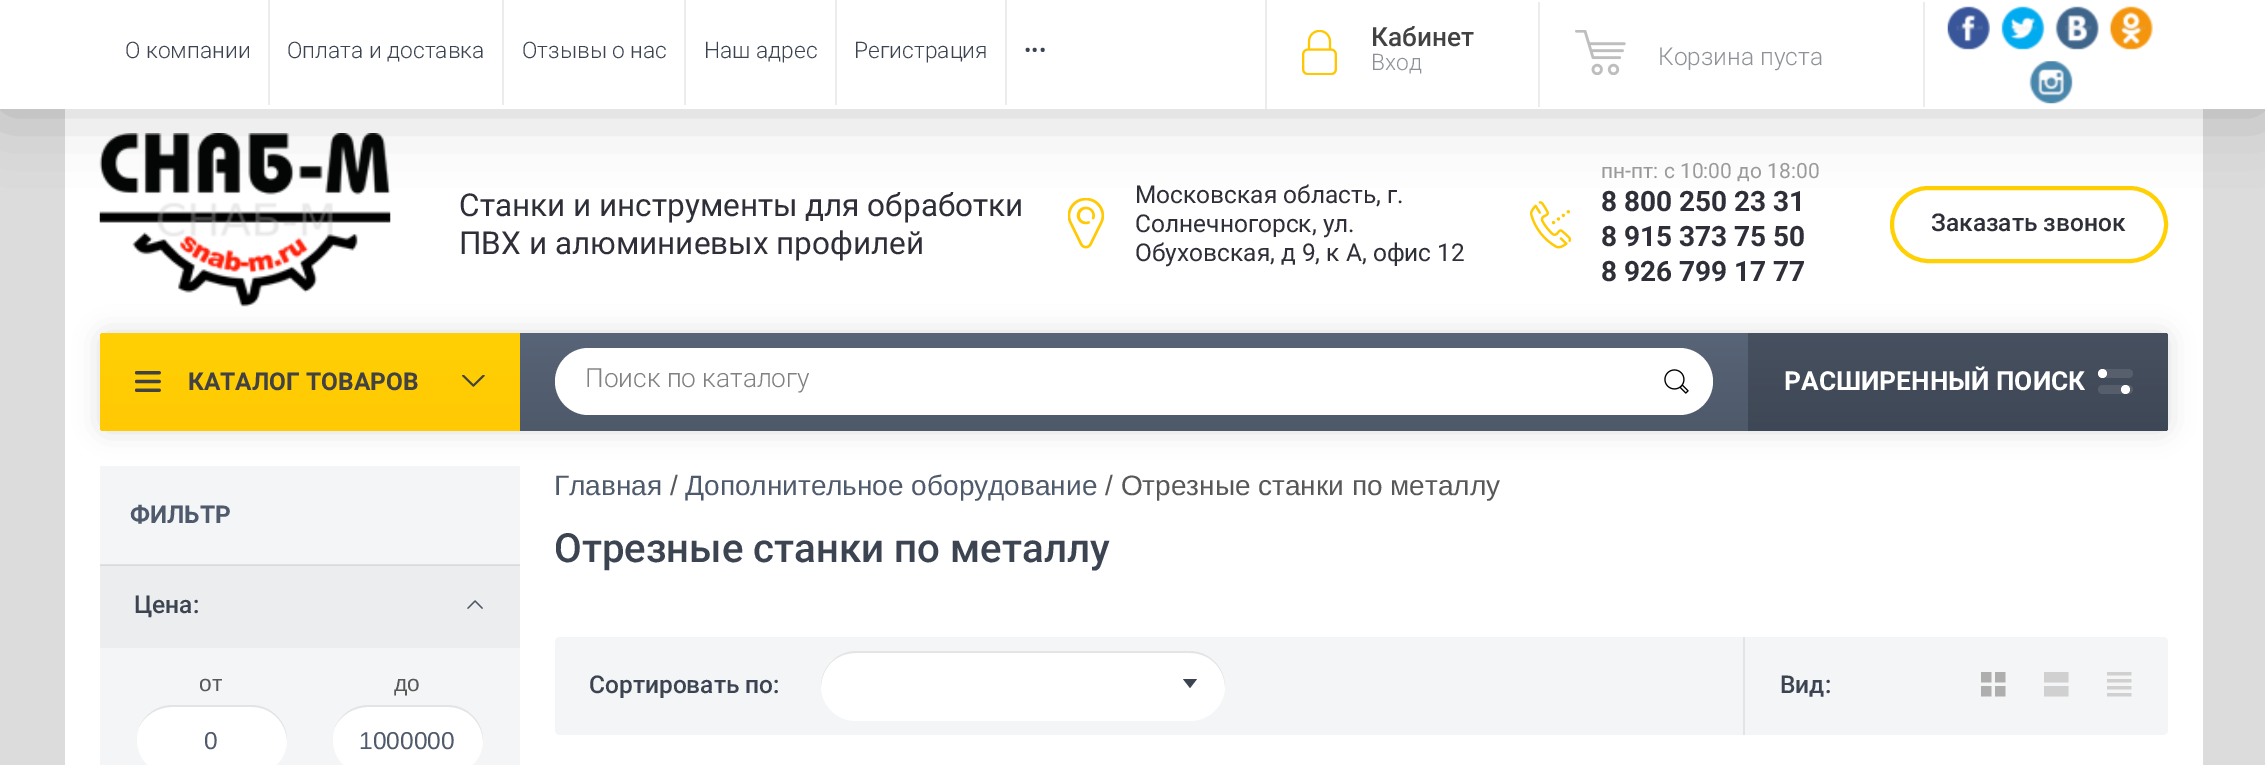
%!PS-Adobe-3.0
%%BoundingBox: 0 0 2265 765
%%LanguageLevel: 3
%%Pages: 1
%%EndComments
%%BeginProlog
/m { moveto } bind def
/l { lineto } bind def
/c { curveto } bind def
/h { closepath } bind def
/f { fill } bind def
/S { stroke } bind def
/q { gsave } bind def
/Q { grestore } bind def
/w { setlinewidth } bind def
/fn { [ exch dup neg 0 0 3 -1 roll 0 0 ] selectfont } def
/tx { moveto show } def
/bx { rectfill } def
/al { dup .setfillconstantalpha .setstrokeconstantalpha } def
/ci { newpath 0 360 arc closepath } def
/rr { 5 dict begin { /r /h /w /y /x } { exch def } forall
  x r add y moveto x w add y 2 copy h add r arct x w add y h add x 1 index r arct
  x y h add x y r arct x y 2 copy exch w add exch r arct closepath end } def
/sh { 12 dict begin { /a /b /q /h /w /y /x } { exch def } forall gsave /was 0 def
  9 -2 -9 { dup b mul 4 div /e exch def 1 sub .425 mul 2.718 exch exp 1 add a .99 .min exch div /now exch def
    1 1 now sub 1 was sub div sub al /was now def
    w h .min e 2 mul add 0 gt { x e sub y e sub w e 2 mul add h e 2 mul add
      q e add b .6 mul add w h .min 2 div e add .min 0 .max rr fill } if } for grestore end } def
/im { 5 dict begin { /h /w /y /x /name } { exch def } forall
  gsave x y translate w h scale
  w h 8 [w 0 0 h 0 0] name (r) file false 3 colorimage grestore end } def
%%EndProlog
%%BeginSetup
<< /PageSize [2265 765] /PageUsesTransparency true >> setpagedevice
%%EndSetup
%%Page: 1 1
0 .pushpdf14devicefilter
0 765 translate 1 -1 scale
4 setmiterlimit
0.863 setgray
0 0 2265 765 bx
1 setgray
65 109 2138 656 bx
(image7.raw) 99 133 292 174 im
(image8.raw) 1068 198 36 51 im
(image9.raw) 1530 201 42 48 im
1 0.816 0.012 setrgbcolor
4 w
1892 188 274 73 36.5 rr S
0 setgray
0 2 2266 108 0 35 0.2 sh
1 setgray
0 0 2265 109 bx
/Roboto-Light 22.75 fn
0.235 0.267 0.322 setrgbcolor
(О компании) 125 58 tx
0.925 setgray
268 0 2 105 bx
0.235 0.267 0.322 setrgbcolor
(Оплата и доставка) 287 58 tx
0.925 setgray
502 0 2 105 bx
0.235 0.267 0.322 setrgbcolor
(Отзывы о нас) 522 58 tx
0.925 setgray
684 0 2 105 bx
0.235 0.267 0.322 setrgbcolor
(Наш адрес) 704 58 tx
0.925 setgray
835 0 2 105 bx
0.235 0.267 0.322 setrgbcolor
(Регистрация) 854 58 tx
0.925 setgray
1005 0 2 105 bx
0.235 0.267 0.322 setrgbcolor
(•••) 1024 58 tx
0.925 setgray
1265 0 2 109 bx
1538 2 2 105 bx
(image0.raw) 1302 30 35 45 im
/Roboto-Medium 26.25 fn
0.259 setgray
(Кабинет) 1371 46 tx
/Roboto-Light 22.75 fn
0.557 0.573 0.596 setrgbcolor
(Вход) 1371 70 tx
0.925 setgray
1923 2 2 105 bx
(image1.raw) 1575 30 51 45 im
/Roboto-Light 24.5 fn
0.557 0.573 0.596 setrgbcolor
(Корзина пуста) 1658 65 tx
(image2.raw) 1947 6 43 44 im
(image3.raw) 2001 6 44 44 im
(image4.raw) 2055 6 44 44 im
(image5.raw) 2109 6 44 44 im
(image6.raw) 2029 61 44 43 im
/Roboto-Regular 31.5 fn
0.18 0.184 0.22 setrgbcolor
(Станки и инструменты для обработки) 459 216 tx
(ПВХ и алюминиевых профилей) 459 254 tx
/Roboto-Regular 24.5 fn
(Московская область, г.) 1135 203 tx
(Солнечногорск, ул.) 1135 232 tx
(Обуховская, д 9, к А, офис 12) 1135 261 tx
/Roboto-Regular 21 fn
0.604 setgray
(пн-пт: с 10:00 до 18:00) 1601 178 tx
/Roboto-Bold 28 fn
0.18 0.184 0.22 setrgbcolor
(8 800 250 23 31) 1601 211 tx
(8 915 373 75 50) 1601 246 tx
(8 926 799 17 77) 1601 281 tx
/Roboto-Medium 24.5 fn
(Заказать звонок) 1931 231 tx
0 setgray
100 333 2068 98 7 13 0.13 sh
q 107 333 m 2163 333 l 2166 333 2168 335 2168 338 c 2168 426 l 2168 429 2166 431 2163 431 c 107 431 l 103 431 100 428 100 424 c 100 340 l 100 336 103 333 107 333 c h clip newpath
<< /ShadingType 2 /ColorSpace /DeviceRGB /Coords [1134 431 1134 333] /Extend [true true] /Function << /FunctionType 2 /Domain [0 1] /C0 [0.306 0.349 0.416] /C1 [0.345 0.392 0.467] /N 1 >> >> shfill Q
q 105 333 m 520 333 l 520 431 l 105 431 l 102 431 100 429 100 426 c 100 338 l 100 335 102 333 105 333 c h clip newpath
<< /ShadingType 2 /ColorSpace /DeviceRGB /Coords [310 431 310 333] /Extend [true true] /Function << /FunctionType 2 /Domain [0 1] /C0 [1 0.788 0.012] /C1 [1 0.816 0.012] /N 1 >> >> shfill Q
(image10.raw) 135 371 26 21 im
/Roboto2-Bold 24.5 fn
0.259 setgray
(КАТАЛОГ ТОВАРОВ) 188 390 tx
(image11.raw) 462 375 23 12 im
1 setgray
555 348 1158 67 33.5 rr f
/Roboto-Light 26.25 fn
0.506 setgray
(Поиск по каталогу) 585 387 tx
(image12.raw) 1664 369 25 25 im
0.2 al
0 setgray
1748 333 420 98 bx
/Roboto2-Bold 26.25 fn
1 al
1 setgray
(РАСШИРЕННЫЙ ПОИСК) 1784 390 tx
0.341 0.373 0.424 setrgbcolor
2098 369 35 9 4.5 rr f
1 setgray
2102.5 373.5 4.5 ci f
0.337 0.369 0.42 setrgbcolor
2098 385 35 9 4.5 rr f
1 setgray
2125.5 389.5 4.5 ci f
0.957 0.961 0.965 setrgbcolor
100 466 420 299 bx
0.925 0.929 0.937 setrgbcolor
100 566 420 82 bx
/Roboto2-Bold 24.5 fn
0.31 0.353 0.424 setrgbcolor
(ФИЛЬТР) 130 523 tx
0.882 setgray
100 564 420 1 bx
0.855 0.855 0.859 setrgbcolor
100 565 420 1 bx
/Roboto-Medium 24.5 fn
0.235 0.267 0.322 setrgbcolor
(Цена:) 134 613 tx
(image13.raw) 467 600 16 9 im
/LiberationSans-Regular 22.75 fn
0.345 setgray
(от) 199 691 tx
1 setgray
137 705 150 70 35 rr f
0.89 0.894 0.898 setrgbcolor
172 707 m 252 707 l 271 707 286 722 287 741 c 287 740 l 287 721 271 705 252 705 c 172 705 l 157 705 145 714 139 727 c 145 715 158 707 172 707 c h f
/LiberationSans-Regular 24.5 fn
0.31 0.353 0.424 setrgbcolor
(0) 204 749 tx
/LiberationSans-Regular 22.75 fn
0.345 setgray
(до) 394 691 tx
1 setgray
333 705 150 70 35 rr f
0.89 0.894 0.898 setrgbcolor
368 707 m 448 707 l 467 707 482 722 483 741 c 483 740 l 483 721 467 705 448 705 c 368 705 l 353 705 341 714 335 727 c 341 715 354 707 368 707 c h f
/LiberationSans-Regular 24.5 fn
0.31 0.353 0.424 setrgbcolor
(1000000) 359 749 tx
/LiberationSans-Regular 28 fn
(Главная) 554 495 tx
0.345 setgray
(/) 670 495 tx
0.31 0.353 0.424 setrgbcolor
(Дополнительное оборудование) 685 495 tx
0.345 setgray
(/ Отрезные станки по металлу) 1105 495 tx
/Roboto-Medium 40.25 fn
0.235 0.267 0.322 setrgbcolor
(Отрезные станки по металлу) 554 562 tx
0.957 0.961 0.965 setrgbcolor
555 637 1613 98 5 rr f
/Roboto-Medium 24.5 fn
0.235 0.267 0.322 setrgbcolor
(Сортировать по:) 589 693 tx
1 setgray
821 651 404 70 35 rr f
0.89 0.894 0.898 setrgbcolor
856 653 m 1190 653 l 1209 653 1224 667 1225 687 c 1225 686 l 1225 667 1209 651 1190 651 c 856 651 l 837 651 821 667 821 686 c 821 687 l 822 667 836 653 856 653 c h f
0.235 0.267 0.322 setrgbcolor
1183 679 m 1197 679 l 1190 688 l h f
0.89 0.894 0.898 setrgbcolor
1743 637 2 98 bx
0.235 0.267 0.322 setrgbcolor
(Вид:) 1780 693 tx
(image14.raw) 1981 672 25 25 im
0.816 0.816 0.82 setrgbcolor
2044 696.5 m 2044 686 l 2068.5 686 l 2068.5 696.5 l h 2044 672 m 2068.5 672 l 2068.5 682.5 l 2044 682.5 l h f
(image15.raw) 2107 672 25 25 im
.poppdf14devicefilter showpage
%%EOF
